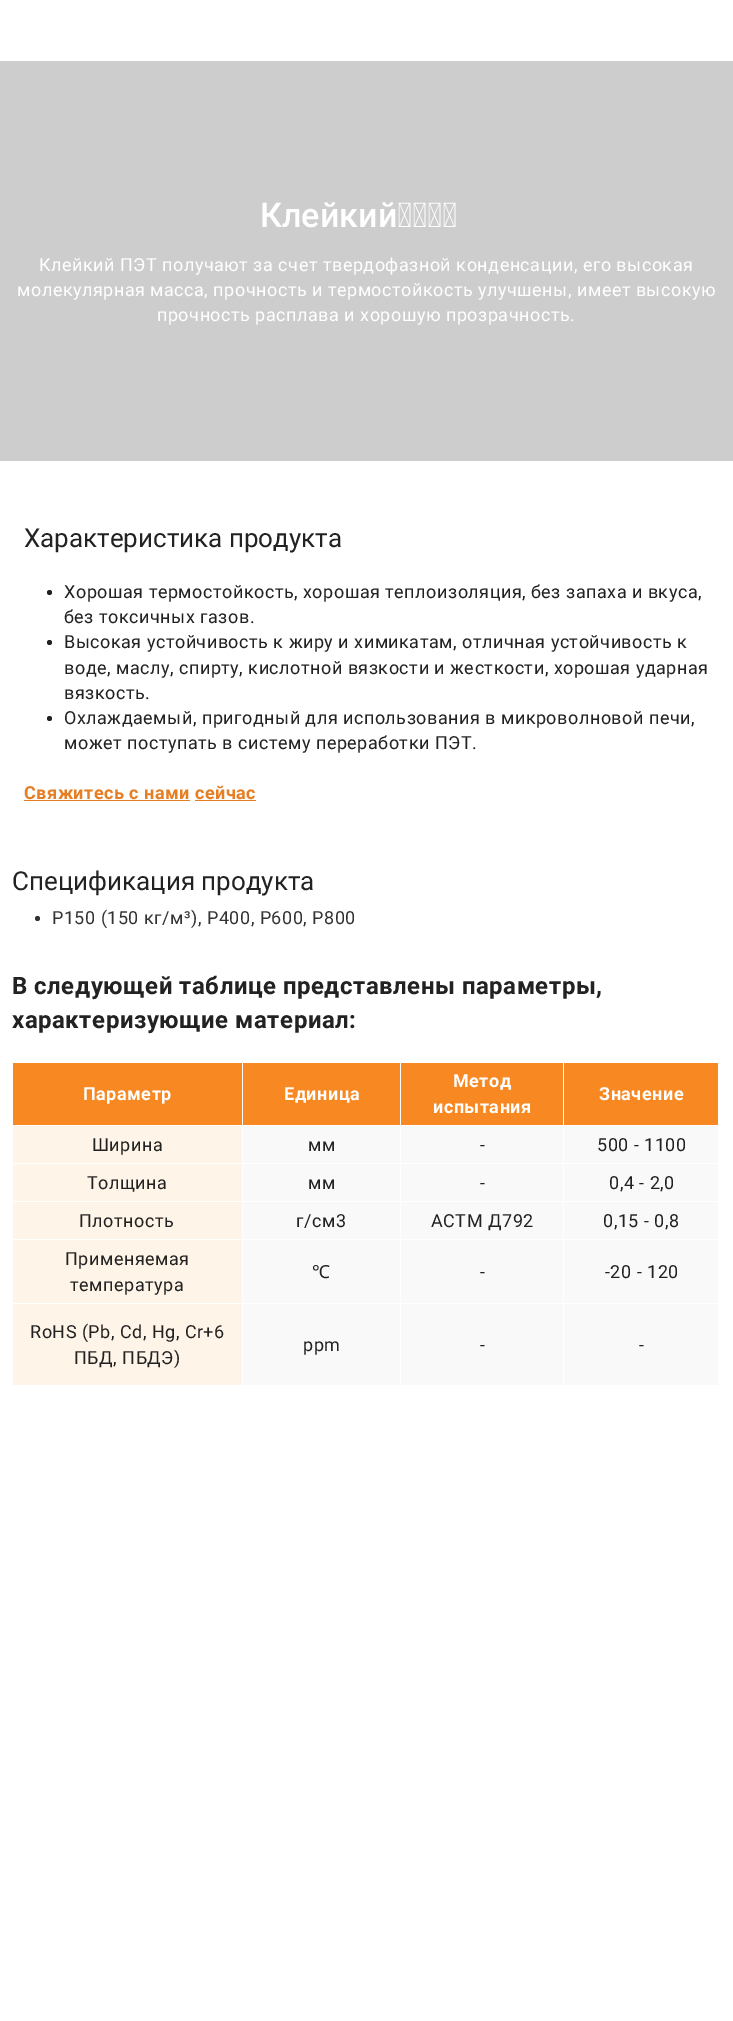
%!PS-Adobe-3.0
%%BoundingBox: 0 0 733 2021
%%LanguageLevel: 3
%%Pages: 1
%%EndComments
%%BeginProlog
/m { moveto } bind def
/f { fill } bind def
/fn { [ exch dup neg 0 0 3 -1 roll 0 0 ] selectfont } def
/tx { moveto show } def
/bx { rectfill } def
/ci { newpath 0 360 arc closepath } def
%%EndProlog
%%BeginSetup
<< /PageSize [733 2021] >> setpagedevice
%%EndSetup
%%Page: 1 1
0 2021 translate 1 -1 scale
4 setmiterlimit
1 setgray
0 0 733 2021 bx
0.804 setgray
0 61 733 400 bx
/Roboto-Medium 34 fn
1 setgray
(Клейкий ПЭТ) 260 227 tx
/Roboto-Regular 18 fn
39 271 m 0.5 0 (Клейкий ПЭТ получают за счет твердофазной конденсации, его высокая) ashow
17 296 m 0.5 0 (молекулярная масса, прочность и термостойкость улучшены, имеет высокую) ashow
157 321 m 0.5 0 (прочность расплава и хорошую прозрачность.) ashow
/Roboto-Regular 26 fn
0.133 setgray
(Характеристика продукта) 24 547 tx
49.5 592.5 2.5 ci f
/Roboto-Regular 18 fn
64 598 m 0.5 0 (Хорошая термостойкость, хорошая теплоизоляция, без запаха и вкуса,) ashow
64 623 m 0.5 0 (без токсичных газов.) ashow
49.5 642.5 2.5 ci f
64 648 m 0.5 0 (Высокая устойчивость к жиру и химикатам, отличная устойчивость к) ashow
64 674 m 0.5 0 (воде, маслу, спирту, кислотной вязкости и жесткости, хорошая ударная) ashow
64 699 m 0.5 0 (вязкость.) ashow
49.5 718.5 2.5 ci f
64 724 m 0.5 0 (Охлаждаемый, пригодный для использования в микроволновой печи,) ashow
64 749 m 0.5 0 (может поступать в систему переработки ПЭТ.) ashow
/Roboto-Bold 18 fn
0.902 0.494 0.137 setrgbcolor
24 799 m 0.5 0 (Свяжитесь с нами сейчас) ashow
24 800 166 1 bx
195 800 61 1 bx
/Roboto-Regular 26 fn
0.133 setgray
(Спецификация продукта) 12 890 tx
0.2 setgray
37.5 918.5 2.5 ci f
/Roboto-Regular 18 fn
52 924 m 0.5 0 (P150 \(150 кг/м³\), P400, P600, P800) ashow
/Roboto-Bold 24 fn
0.133 setgray
12 994 m 0.5 0 (В следующей таблице представлены параметры,) ashow
12 1028 m 0.5 0 (характеризующие материал:) ashow
0.973 0.533 0.133 setrgbcolor
13 1063 229 62 bx
/Roboto-Bold 18 fn
1 setgray
83 1100 m 0.5 0 (Параметр) ashow
0.973 0.533 0.133 setrgbcolor
243 1063 157 62 bx
1 setgray
284 1100 m 0.5 0 (Единица) ashow
0.973 0.533 0.133 setrgbcolor
401 1063 162 62 bx
1 setgray
453 1087 m 0.5 0 (Метод) ashow
433 1113 m 0.5 0 (испытания) ashow
0.973 0.533 0.133 setrgbcolor
564 1063 154 62 bx
1 setgray
599 1100 m 0.5 0 (Значение) ashow
0.996 0.957 0.906 setrgbcolor
13 1126 229 37 bx
/Roboto-Regular 18 fn
0.133 setgray
92 1151 m 0.5 0 (Ширина) ashow
0.976 setgray
243 1126 157 37 bx
0.133 setgray
308 1151 m 0.5 0 (мм) ashow
0.976 setgray
401 1126 162 37 bx
0.133 setgray
480 1151 m 0.5 0 (-) ashow
0.976 setgray
564 1126 154 37 bx
0.133 setgray
597 1151 m 0.5 0 (500 - 1100) ashow
0.996 0.957 0.906 setrgbcolor
13 1164 229 37 bx
0.133 setgray
87 1189 m 0.5 0 (Толщина) ashow
0.976 setgray
243 1164 157 37 bx
0.133 setgray
308 1189 m 0.5 0 (мм) ashow
0.976 setgray
401 1164 162 37 bx
0.133 setgray
480 1189 m 0.5 0 (-) ashow
0.976 setgray
564 1164 154 37 bx
0.133 setgray
609 1189 m 0.5 0 (0,4 - 2,0) ashow
0.996 0.957 0.906 setrgbcolor
13 1202 229 37 bx
0.133 setgray
79 1227 m 0.5 0 (Плотность) ashow
0.976 setgray
243 1202 157 37 bx
0.133 setgray
296 1227 m 0.5 0 (г/см3) ashow
0.976 setgray
401 1202 162 37 bx
0.133 setgray
431 1227 m 0.5 0 (АСТМ Д792) ashow
0.976 setgray
564 1202 154 37 bx
0.133 setgray
603 1227 m 0.5 0 (0,15 - 0,8) ashow
0.996 0.957 0.906 setrgbcolor
13 1240 229 63 bx
0.133 setgray
65 1265 m 0.5 0 (Применяемая) ashow
70 1291 m 0.5 0 (температура) ashow
0.976 setgray
243 1240 157 63 bx
/NotoSans-Regular 18 fn
0.133 setgray
312 1278 m 0.5 0 (℃) ashow
0.976 setgray
401 1240 162 63 bx
/Roboto-Regular 18 fn
0.133 setgray
480 1278 m 0.5 0 (-) ashow
0.976 setgray
564 1240 154 63 bx
0.133 setgray
605 1278 m 0.5 0 (-20 - 120) ashow
0.996 0.957 0.906 setrgbcolor
13 1304 229 81 bx
0.133 setgray
30 1338 m 0.5 0 (RoHS \(Pb, Cd, Hg, Cr+6) ashow
74 1364 m 0.5 0 (ПБД, ПБДЭ\)) ashow
0.976 setgray
243 1304 157 81 bx
0.133 setgray
303 1351 m 0.5 0 (ppm) ashow
0.976 setgray
401 1304 162 81 bx
0.133 setgray
480 1351 m 0.5 0 (-) ashow
0.976 setgray
564 1304 154 81 bx
0.133 setgray
639 1351 m 0.5 0 (-) ashow
showpage
%%EOF
